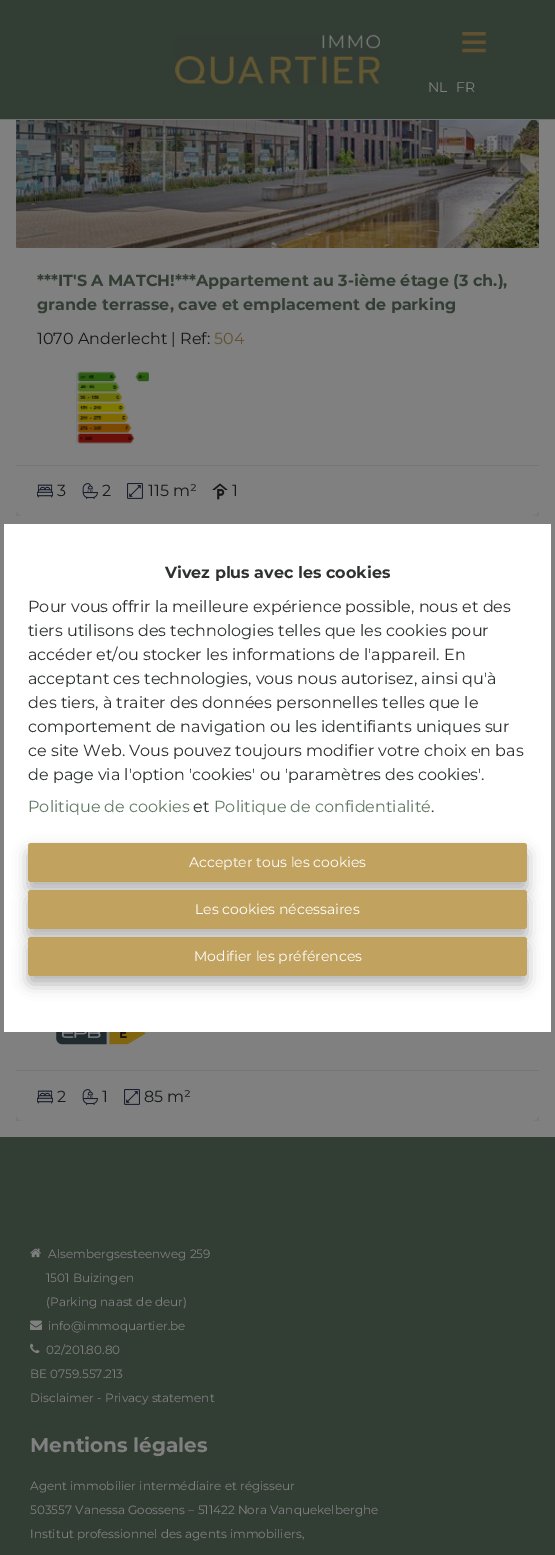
%!PS-Adobe-3.0
%%BoundingBox: 0 0 555 1555
%%LanguageLevel: 3
%%Pages: 1
%%EndComments
%%BeginProlog
/f { fill } bind def
/q { gsave } bind def
/Q { grestore } bind def
/fn { [ exch dup neg 0 0 3 -1 roll 0 0 ] selectfont } def
/tx { moveto show } def
/bx { rectfill } def
/al { dup .setfillconstantalpha .setstrokeconstantalpha } def
/rr { 5 dict begin { /r /h /w /y /x } { exch def } forall
  x r add y moveto x w add y 2 copy h add r arct x w add y h add x 1 index r arct
  x y h add x y r arct x y 2 copy exch w add exch r arct closepath end } def
/sh { 12 dict begin { /a /b /q /h /w /y /x } { exch def } forall gsave /was 0 def
  9 -2 -9 { dup b mul 4 div /e exch def 1 sub .425 mul 2.718 exch exp 1 add a .99 .min exch div /now exch def
    1 1 now sub 1 was sub div sub al /was now def
    w h .min e 2 mul add 0 gt { x e sub y e sub w e 2 mul add h e 2 mul add
      q e add b .6 mul add w h .min 2 div e add .min 0 .max rr fill } if } for grestore end } def
/im { 5 dict begin { /h /w /y /x /name } { exch def } forall
  gsave x y translate w h scale
  w h 8 [w 0 0 h 0 0] name (r) file false 3 colorimage grestore end } def
%%EndProlog
%%BeginSetup
<< /PageSize [555 1555] /PageUsesTransparency true >> setpagedevice
%%EndSetup
%%Page: 1 1
0 .pushpdf14devicefilter
0 1555 translate 1 -1 scale
4 setmiterlimit
0.502 setgray
0 0 555 1555 bx
q
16 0 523 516 rectclip
0.035 0.067 0.125 setrgbcolor
16 -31 523 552 8 7.5 0.15 sh
Q
16 -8 523 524 8 rr f
0.196 0.239 0.204 setrgbcolor
0 0 555 119 bx
0.435 setgray
0 119 555 1 bx
(image0.raw) 175 34 205 51 im
/LiberationSans-Regular 48 fn
0.38 0.318 0.188 setrgbcolor
(≡) 460 58 tx
/Montserrat-Regular 14 fn
0.502 setgray
(NL) 428 92 tx
(FR) 456 92 tx
(image1.raw) 16 120 523 128 im
/Montserrat-Bold 16 fn
0.196 0.239 0.204 setrgbcolor
(***IT'S A MATCH!***Appartement au 3-ième étage \(3 ch.\),) 37 286 tx
(grande terrasse, cave et emplacement de parking) 37 310 tx
/Montserrat-Regular 16 fn
0.09 0.098 0.098 setrgbcolor
(1070 Anderlecht | Ref:) 37 344 tx
0.38 0.318 0.188 setrgbcolor
(504) 214 344 tx
(image2.raw) 76 371 73 73 im
0.463 setgray
16 465 523 1 bx
(image3.raw) 37 484 16 14 im
0.09 0.098 0.098 setrgbcolor
(3) 57 496 tx
(image4.raw) 82 483 16 16 im
(2) 102 496 tx
(image5.raw) 127 483 16 16 im
(115 m²) 148 496 tx
(image6.raw) 212 483 16 17 im
(1) 232 496 tx
0.196 0.239 0.204 setrgbcolor
0 1137 555 418 bx
q
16 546 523 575 rectclip
0.035 0.067 0.125 setrgbcolor
16 551 523 575 8 7.5 0.15 sh
Q
0.502 setgray
16 546 523 575 8 rr f
(image7.raw) 56 1032 90 13 im
0.463 setgray
16 1070 523 1 bx
(image3.raw) 37 1090 16 14 im
0.09 0.098 0.098 setrgbcolor
(2) 57 1102 tx
(image4.raw) 82 1089 16 16 im
(1) 102 1102 tx
(image5.raw) 124 1089 16 16 im
(85 m²) 144 1102 tx
1 setgray
4 524 547 508 bx
/Montserrat-Bold 16 fn
0.18 0.192 0.192 setrgbcolor
(Vivez plus avec les cookies) 165 578 tx
/Montserrat-Regular 16 fn
(Pour vous offrir la meilleure expérience possible, nous et des) 28 612 tx
(tiers utilisons des technologies telles que les cookies pour) 28 636 tx
(accéder et/ou stocker les informations de l'appareil. En) 28 660 tx
(acceptant ces technologies, vous nous autorisez, ainsi qu'à) 28 684 tx
(des tiers, à traiter des données personnelles telles que le) 28 708 tx
(comportement de navigation ou les identifiants uniques sur) 28 732 tx
(ce site Web. Vous pouvez toujours modifier votre choix en bas) 28 756 tx
(de page via l'option 'cookies' ou 'paramètres des cookies'.) 28 780 tx
0.388 0.475 0.404 setrgbcolor
(Politique de cookies) 28 812 tx
0.18 0.192 0.192 setrgbcolor
(et) 193 812 tx
0.388 0.475 0.404 setrgbcolor
(Politique de confidentialité) 214 812 tx
0.18 0.192 0.192 setrgbcolor
(.) 431 812 tx
0 setgray
28 851 499 39 3 7.5 0.3 sh
0.757 0.635 0.373 setrgbcolor
28 843 499 39 3 rr f
/Montserrat-Regular 14 fn
1 setgray
(Accepter tous les cookies) 189 867 tx
0 setgray
28 898 499 39 3 7.5 0.3 sh
0.757 0.635 0.373 setrgbcolor
28 890 499 39 3 rr f
1 setgray
(Les cookies nécessaires) 195 914 tx
0 setgray
28 945 499 39 3 7.5 0.3 sh
0.757 0.635 0.373 setrgbcolor
28 937 499 39 3 rr f
1 setgray
(Modifier les préférences) 194 961 tx
(image8.raw) 30 1248 11 10 im
/Montserrat-Regular 12 fn
0.502 setgray
(Alsembergsesteenweg 259) 48 1258 tx
(1501 Buizingen) 46 1282 tx
(\(Parking naast de deur\)) 46 1306 tx
(image9.raw) 30 1320 12 10 im
(info@immoquartier.be) 48 1330 tx
(image10.raw) 30 1343 10 11 im
(02/201.80.80) 46 1354 tx
(BE 0759.557.213) 30 1378 tx
(Disclaimer - Privacy statement) 30 1402 tx
/Montserrat-Bold 20 fn
(Mentions légales) 30 1452 tx
/Montserrat-Regular 12 fn
(Agent immobilier intermédiaire et régisseur) 30 1490 tx
(503557 Vanessa Goossens – 511422 Nora Vanquekelberghe) 30 1514 tx
(Institut professionnel des agents immobiliers,) 30 1538 tx
.poppdf14devicefilter showpage
%%EOF
